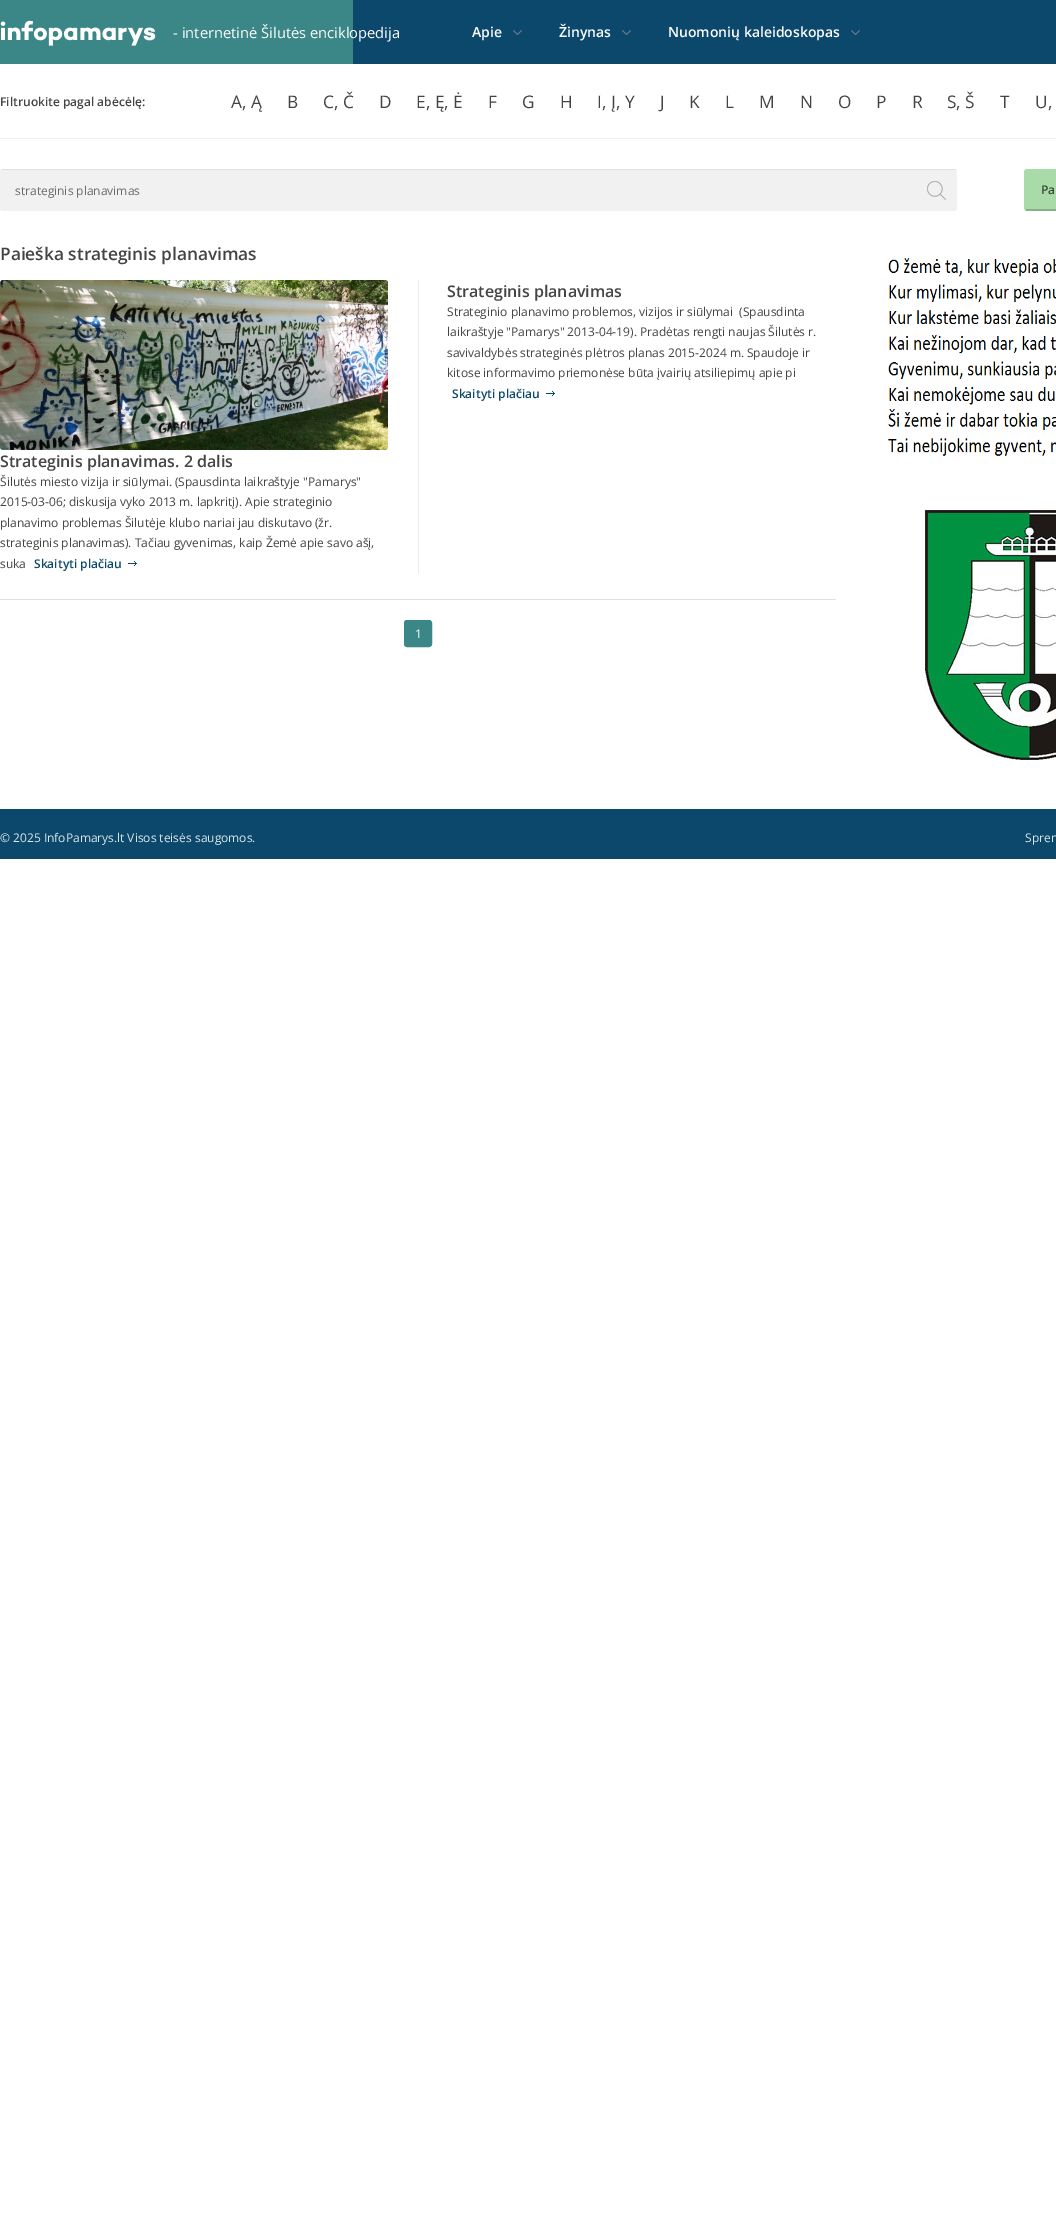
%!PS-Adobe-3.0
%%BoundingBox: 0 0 1056 2214
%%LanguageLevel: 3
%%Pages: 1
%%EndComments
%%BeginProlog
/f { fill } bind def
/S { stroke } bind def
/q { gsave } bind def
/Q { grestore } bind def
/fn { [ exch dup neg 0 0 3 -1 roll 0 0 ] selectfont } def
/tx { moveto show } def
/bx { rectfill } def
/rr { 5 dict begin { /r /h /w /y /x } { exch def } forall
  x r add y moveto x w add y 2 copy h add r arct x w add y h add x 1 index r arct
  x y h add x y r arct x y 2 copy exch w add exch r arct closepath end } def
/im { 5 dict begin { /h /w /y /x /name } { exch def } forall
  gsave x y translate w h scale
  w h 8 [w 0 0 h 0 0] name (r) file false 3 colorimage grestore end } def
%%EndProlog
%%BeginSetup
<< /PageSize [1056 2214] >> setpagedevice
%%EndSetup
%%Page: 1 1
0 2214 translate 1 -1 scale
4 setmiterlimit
1 setgray
0 0 1056 2214 bx
(image0.raw) 0 0 1056 64 im
(image1.raw) 0 20 156 26 im
/OpenSans-Regular 14.7 fn
(- internetinė Šilutės enciklopedija) 173 38 tx
(image2.raw) 513 30 9 5 im
/OpenSans-SemiBold 14 fn
(Apie) 472 37 tx
(image2.raw) 622 30 9 5 im
(Žinynas) 559 37 tx
(image2.raw) 851 30 9 5 im
(Nuomonių kaleidoskopas) 668 37 tx
0.933 setgray
0 138 1056 1 bx
/OpenSans-SemiBold 12 fn
0.267 setgray
(Filtruokite pagal abėcėlę:) 0 106 tx
/OpenSans-Regular 17.3 fn
(A, Ą) 231 108 tx
(B) 287 108 tx
(C, Č) 323 108 tx
(D) 379 108 tx
(E, Ę, Ė) 416 108 tx
(F) 488 108 tx
(G) 522 108 tx
(H) 560 108 tx
(I, Į, Y) 597 108 tx
(J) 660 108 tx
(K) 689 108 tx
(L) 725 108 tx
(M) 759 108 tx
(N) 800 108 tx
(O) 838 108 tx
(P) 876 108 tx
(R) 912 108 tx
(S, Š) 947 108 tx
(T) 1000 108 tx
(U,) 1035 108 tx
0.945 setgray
0 169 957 42 3 rr f
0.878 setgray
2 169 954 1 bx
0.945 setgray
0 170 916 41 3 rr f
/OpenSans-Regular 12 fn
0.42 setgray
(strateginis planavimas) 15 195 tx
0.945 setgray
916 170 41 41 3 rr f
(image3.raw) 927 181 19 19 im
0.659 0.859 0.659 setrgbcolor
1024 169 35 42 3 rr f
0.525 0.686 0.525 setrgbcolor
1026 209 30 2 bx
/OpenSans-SemiBold 12 fn
0.216 0.275 0.216 setrgbcolor
(Pa) 1041 194 tx
/OpenSans-SemiBold 17.3 fn
0.267 setgray
(Paieška strateginis planavimas) 0 260 tx
/OpenSans-SemiBold 16 fn
(Strateginis planavimas) 447 297 tx
/OpenSans-Regular 12 fn
(Strateginio planavimo problemos, vizijos ir siūlymai  \(Spausdinta) 447 316 tx
(laikraštyje "Pamarys" 2013-04-19\). Pradėtas rengti naujas Šilutės r.) 447 336 tx
(savivaldybės strateginės plėtros planas 2015-2024 m. Spaudoje ir) 447 357 tx
(kitose informavimo priemonėse būta įvairių atsiliepimų apie pi) 447 377 tx
/OpenSans-SemiBold 12 fn
0.043 0.282 0.42 setrgbcolor
(Skaityti plačiau) 452 398 tx
(image4.raw) 546 391 9 5 im
0.933 setgray
418 280 1 294 bx
(image5.raw) 0 280 388 170 im
/OpenSans-SemiBold 16 fn
0.267 setgray
(Strateginis planavimas. 2 dalis) 0 467 tx
/OpenSans-Regular 12 fn
(Šilutės miesto vizija ir siūlymai. \(Spausdinta laikraštyje "Pamarys") 0 486 tx
(2015-03-06; diskusija vyko 2013 m. lapkritį\). Apie strateginio) 0 506 tx
(planavimo problemas Šilutėje klubo nariai jau diskutavo \(žr.) 0 527 tx
(strateginis planavimas\). Tačiau gyvenimas, kaip Žemė apie savo ašį,) 0 547 tx
(suka) 0 568 tx
/OpenSans-SemiBold 12 fn
0.043 0.282 0.42 setrgbcolor
(Skaityti plačiau) 34 568 tx
(image4.raw) 128 561 9 5 im
0.878 setgray
0 599 836 1 bx
0.231 0.525 0.525 setrgbcolor
404.5 620.5 27 26 2.5 rr q f Q
S
/OpenSans-Regular 12 fn
1 setgray
(1) 415 638 tx
(image6.raw) 888 258 168 198 im
(image7.raw) 920 510 136 250 im
0.043 0.282 0.42 setrgbcolor
0 809 1056 50 bx
0.855 0.898 0.922 setrgbcolor
(© 2025 InfoPamarys.lt Visos teisės saugomos.) 0 842 tx
(Spren) 1025 842 tx
showpage
%%EOF
